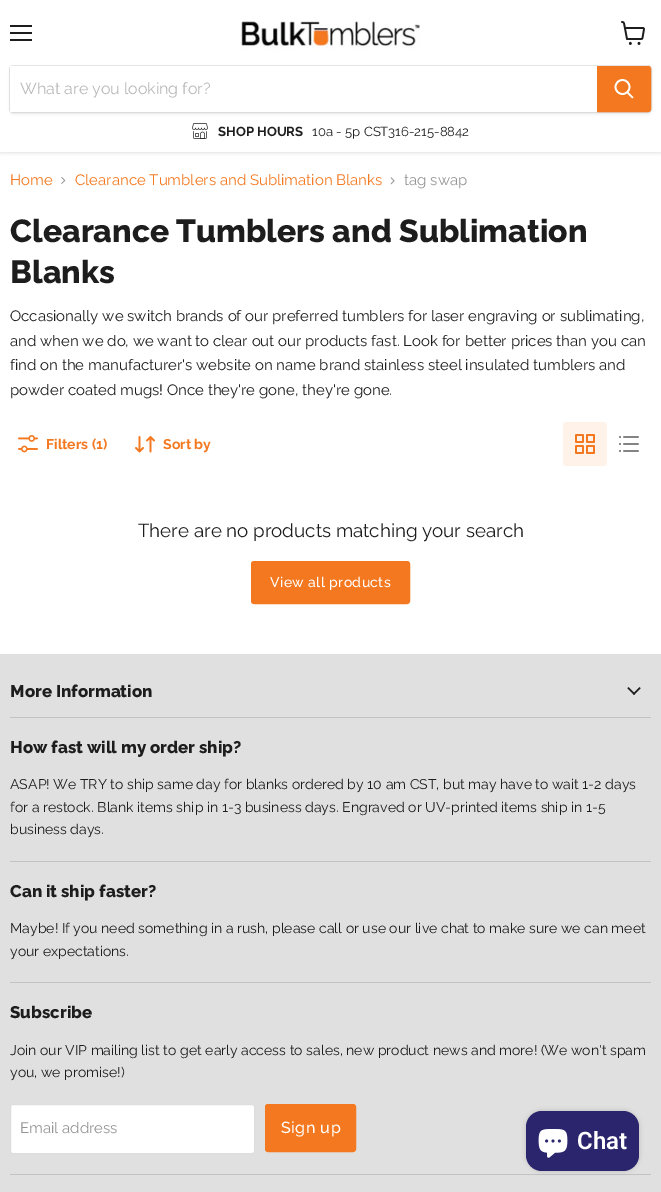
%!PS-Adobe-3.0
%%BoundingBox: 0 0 661 1192
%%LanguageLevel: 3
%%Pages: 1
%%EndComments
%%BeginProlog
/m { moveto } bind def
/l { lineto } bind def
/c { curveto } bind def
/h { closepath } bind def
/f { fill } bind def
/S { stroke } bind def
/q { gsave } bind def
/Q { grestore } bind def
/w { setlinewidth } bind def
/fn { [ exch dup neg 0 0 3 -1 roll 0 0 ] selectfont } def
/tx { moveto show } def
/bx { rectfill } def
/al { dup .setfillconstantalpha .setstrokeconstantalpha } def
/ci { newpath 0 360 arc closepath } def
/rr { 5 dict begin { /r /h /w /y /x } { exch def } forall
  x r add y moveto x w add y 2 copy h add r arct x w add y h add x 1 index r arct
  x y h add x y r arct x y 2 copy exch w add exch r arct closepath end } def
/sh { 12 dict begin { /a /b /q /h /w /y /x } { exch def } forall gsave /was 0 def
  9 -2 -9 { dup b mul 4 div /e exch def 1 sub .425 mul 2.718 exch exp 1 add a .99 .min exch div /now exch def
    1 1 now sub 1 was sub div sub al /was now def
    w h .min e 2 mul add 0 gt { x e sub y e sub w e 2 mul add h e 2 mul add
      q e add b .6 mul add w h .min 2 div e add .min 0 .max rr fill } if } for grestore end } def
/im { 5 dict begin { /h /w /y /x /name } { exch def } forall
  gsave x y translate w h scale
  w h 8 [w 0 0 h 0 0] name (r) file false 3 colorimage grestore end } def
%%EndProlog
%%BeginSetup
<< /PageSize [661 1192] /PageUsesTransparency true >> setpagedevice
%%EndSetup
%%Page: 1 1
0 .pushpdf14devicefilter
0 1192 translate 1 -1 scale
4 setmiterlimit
1 setgray
0 0 661 1192 bx
q
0 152 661 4 rectclip
0.502 setgray
0 1 661 152 0 2 0.25 sh
Q
0.114 setgray
10 25 22 2 bx
10 32 22 2 bx
10 39 22 2 bx
(image0.raw) 621 21 24 24 im
(image1.raw) 241 21 179 30 im
0.502 setgray
9 67 643 48 4 1.5 0.11 sh
0.2 al
9.5 65.5 642 47 3.5 rr S
1 al
1 setgray
10 66 587 46 bx
/Raleway-Regular 16 fn
0.722 setgray
(What are you looking for?) 20 94 tx
0.957 0.471 0.122 setrgbcolor
597.5 66.5 m 648 66.5 l 649.5 66.5 650.5 67.5 650.5 69 c 650.5 109 l 650.5 110.5 649.5 111.5 648 111.5 c 597.5 111.5 l h q f Q
S
1 setgray
1.7 w
1 setlinecap
632.5 97.5 m 627.5 92.5 l S
0 setlinecap
622.5 87 7 ci S
(image2.raw) 192 123 16 16 im
/Raleway-Bold 13.1 fn
0.114 setgray
(SHOP HOURS) 218 136 tx
/Raleway-Regular 13.1 fn
(10a - 5p CST316-215-8842) 312 136 tx
/Raleway-Regular 15 fn
0.957 0.471 0.122 setrgbcolor
(Home) 10 185 tx
(image3.raw) 61 177 5 7 im
(Clearance Tumblers and Sublimation Blanks) 75 185 tx
(image4.raw) 390 177 5 8 im
0.58 setgray
(tag swap) 404 185 tx
/Raleway-ExtraBold 31.9 fn
0.114 setgray
(Clearance Tumblers and Sublimation) 10 242 tx
(Blanks) 10 283 tx
/Raleway-Regular 15 fn
(Occasionally we switch brands of our preferred tumblers for laser engraving or sublimating,) 10 321 tx
(and when we do, we want to clear out our products fast. Look for better prices than you can) 10 346 tx
(find on the manufacturer's website on name brand stainless steel insulated tumblers and) 10 370 tx
(powder coated mugs! Once they're gone, they're gone.) 10 395 tx
(image5.raw) 18 435 20 18 im
/Raleway-Bold 14.05 fn
0.957 0.471 0.122 setrgbcolor
(Filters \(1\)) 46 449 tx
(image6.raw) 135 436 20 17 im
(Sort by) 163 449 tx
0.996 0.949 0.914 setrgbcolor
563 422 44 44 3 rr f
(image7.raw) 575 434 20 20 im
(image8.raw) 619 436 20 16 im
/Raleway-Regular 18.75 fn
0.114 setgray
(There are no products matching your search) 138 537 tx
0.957 0.471 0.122 setrgbcolor
251.5 561.5 158 42 2.5 rr q f Q
1 w
S
/Raleway-Medium 14 fn
1 setgray
270 587 m 0.4 0 (View all products) ashow
0.878 setgray
0 654 661 538 bx
0.765 setgray
10 717 641 1 bx
/Raleway-ExtraBold 16.9 fn
0.114 setgray
(More Information) 10 697 tx
(image9.raw) 627 687 14 8 im
0.765 setgray
10 861 641 1 bx
0.114 setgray
(How fast will my order ship?) 10 753 tx
/Raleway-Regular 14.05 fn
(ASAP! We TRY to ship same day for blanks ordered by 10 am CST, but may have to wait 1-2 days) 10 789 tx
(for a restock. Blank items ship in 1-3 business days. Engraved or UV-printed items ship in 1-5) 10 812 tx
(business days.) 10 834 tx
0.765 setgray
10 982 641 1 bx
/Raleway-ExtraBold 16.9 fn
0.114 setgray
(Can it ship faster?) 10 897 tx
/Raleway-Regular 14.05 fn
(Maybe! If you need something in a rush, please call or use our live chat to make sure we can meet) 10 933 tx
(your expectations.) 10 956 tx
0.765 setgray
10 1174 641 1 bx
/Raleway-ExtraBold 16.9 fn
0.114 setgray
(Subscribe) 10 1018 tx
/Raleway-Regular 14.05 fn
(Join our VIP mailing list to get early access to sales, new product news and more! \(We won't spam) 10 1055 tx
(you, we promise!\)) 10 1077 tx
1 setgray
10.5 1104.5 244 49 2.5 rr q f Q
0.867 setgray
S
/Raleway-Regular 15 fn
0.58 setgray
(Email address) 20 1133 tx
0.957 0.471 0.122 setrgbcolor
265.5 1104.5 90 47 2.5 rr q f Q
S
/Raleway-Medium 16 fn
1 setgray
281 1133 m 0.5 0 (Sign up) ashow
0 setgray
526 1111 113 60 16 2.5 0.15 sh
0.165 0.145 0.424 setrgbcolor
526 1111 113 60 16 rr f
(image10.raw) 538 1129 30 29 im
/Roboto-SemiBold 24 fn
1 setgray
(Chat) 577 1149 tx
.poppdf14devicefilter showpage
%%EOF
